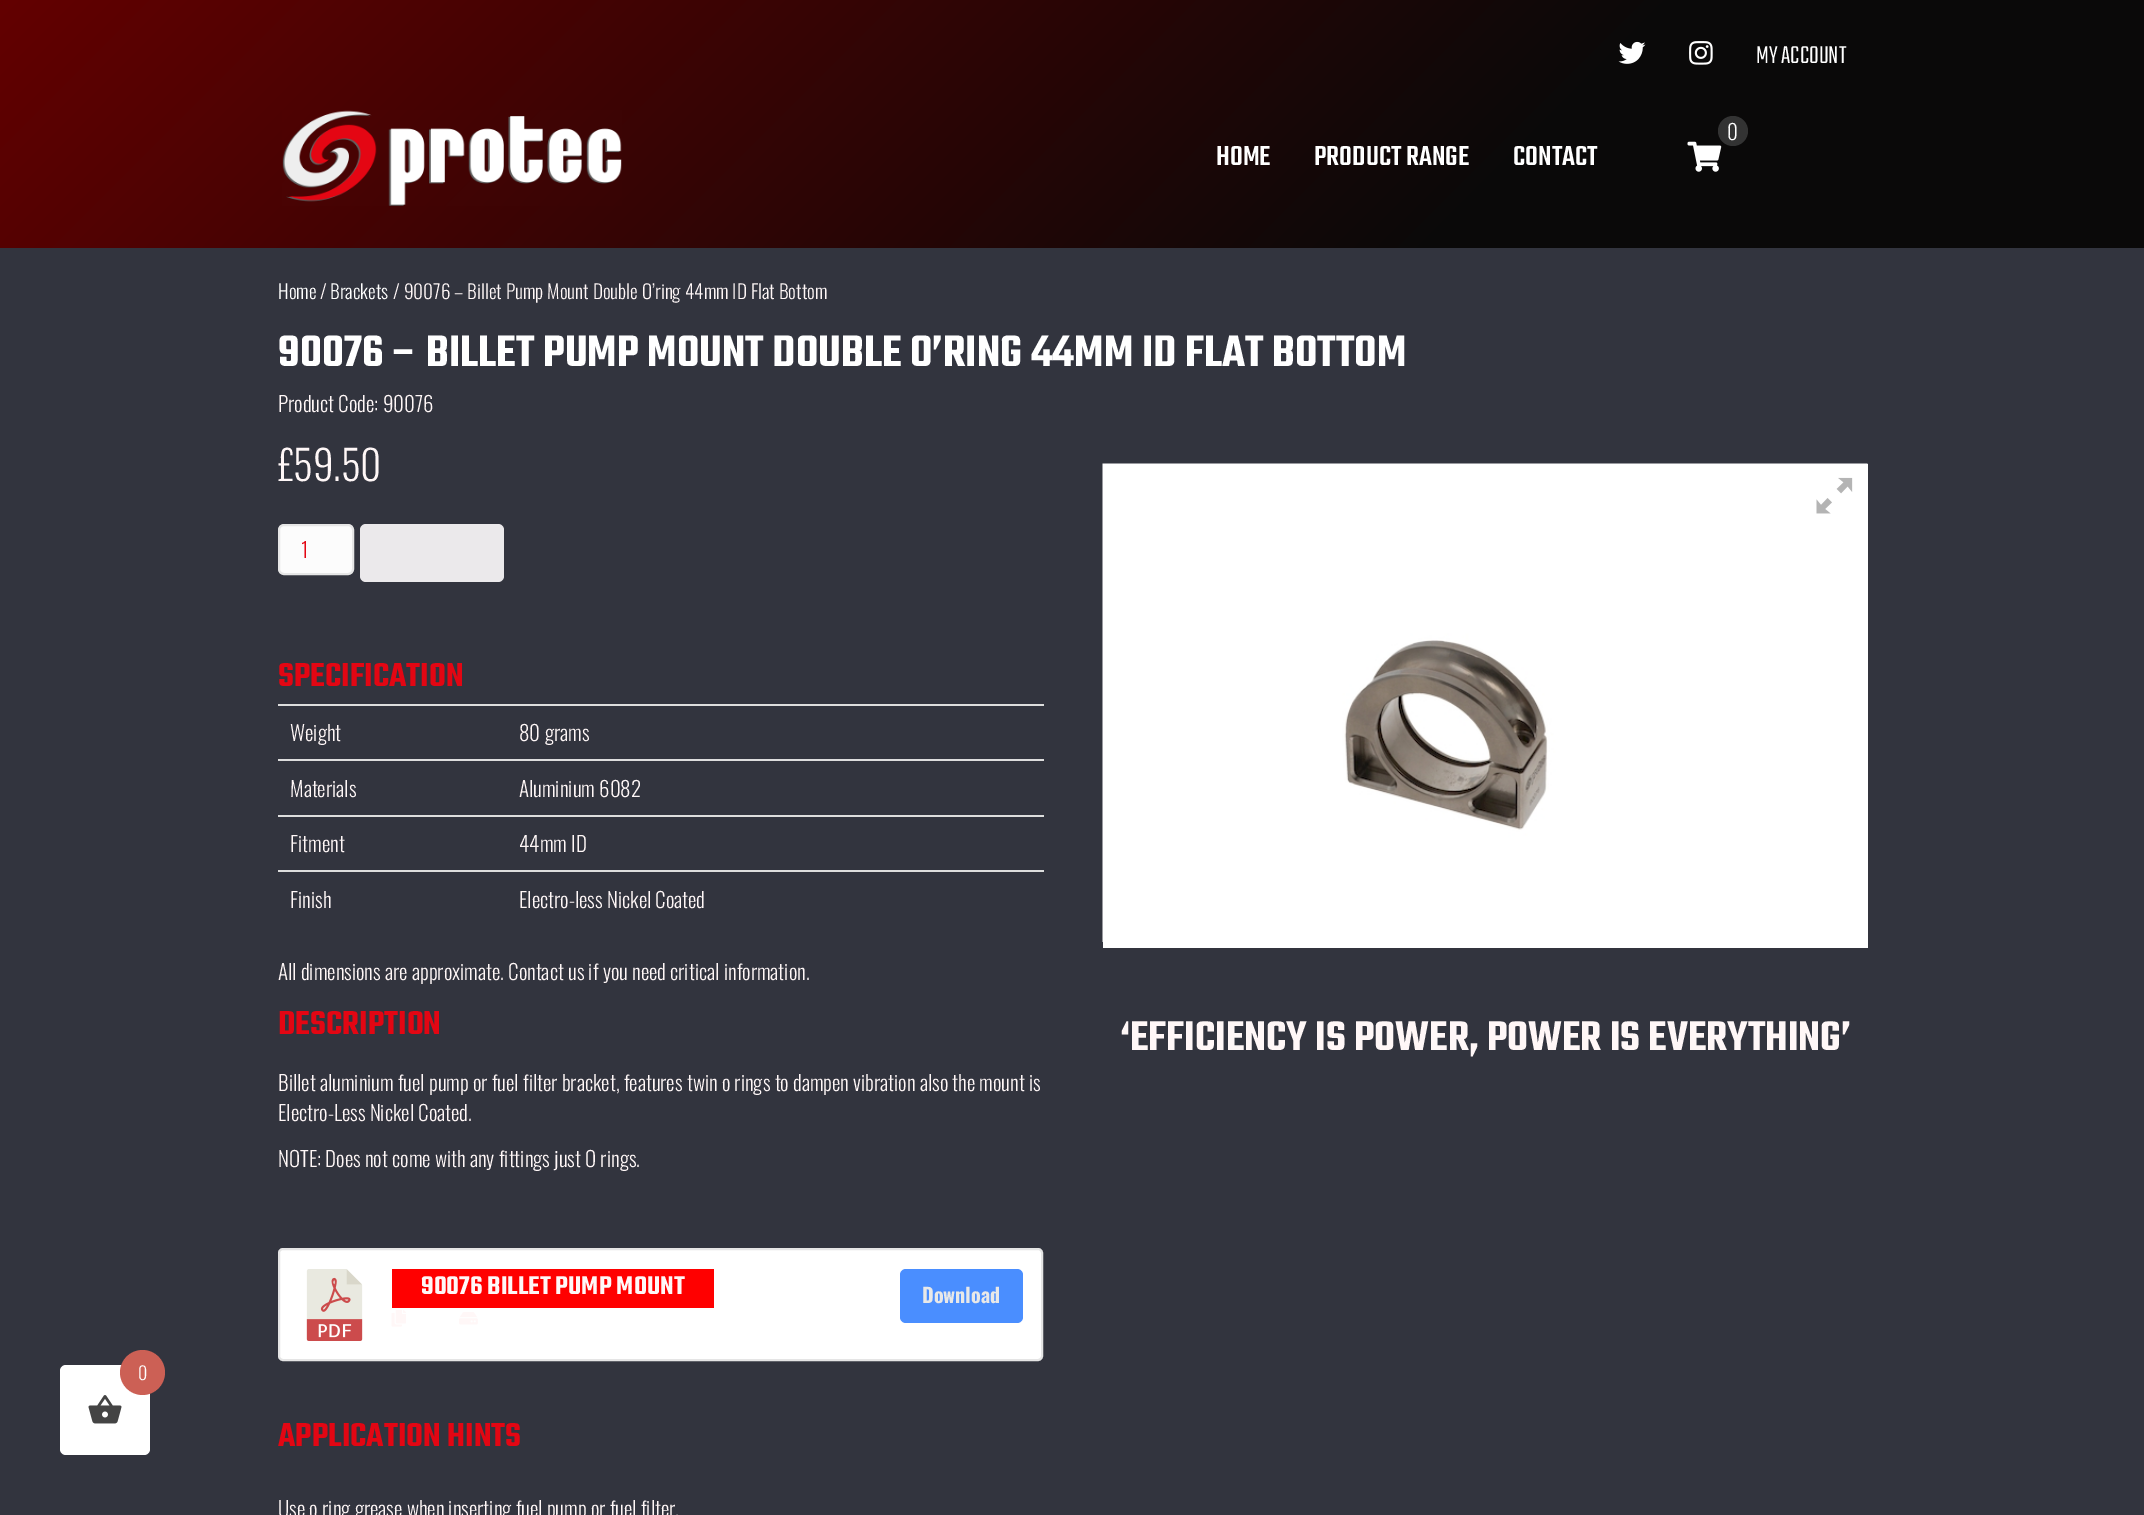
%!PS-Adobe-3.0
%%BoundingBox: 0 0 2144 1515
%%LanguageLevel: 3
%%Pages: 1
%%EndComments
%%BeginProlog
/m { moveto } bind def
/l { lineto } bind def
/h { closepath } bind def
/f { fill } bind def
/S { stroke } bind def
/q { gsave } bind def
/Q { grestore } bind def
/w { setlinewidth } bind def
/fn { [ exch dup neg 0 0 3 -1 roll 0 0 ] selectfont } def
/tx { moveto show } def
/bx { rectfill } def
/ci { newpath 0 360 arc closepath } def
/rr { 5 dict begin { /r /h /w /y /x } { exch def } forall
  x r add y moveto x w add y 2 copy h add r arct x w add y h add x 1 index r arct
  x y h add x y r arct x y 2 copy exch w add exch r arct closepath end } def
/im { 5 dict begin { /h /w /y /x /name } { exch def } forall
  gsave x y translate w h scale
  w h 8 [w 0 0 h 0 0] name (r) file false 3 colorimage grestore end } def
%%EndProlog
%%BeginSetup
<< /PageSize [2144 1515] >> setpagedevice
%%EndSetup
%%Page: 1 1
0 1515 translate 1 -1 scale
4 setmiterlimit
0.196 0.204 0.243 setrgbcolor
0 0 2144 1515 bx
1 setgray
60 1365 90 90 6 rr f
0.8 0.376 0.333 setrgbcolor
142.5 1372.5 22.5 ci f
/Oswald-Light 18 fn
1 setgray
(0) 138 1380 tx
(image0.raw) 88 1395 34 29 im
q 0 0 m 2144 0 l 2144 248 l 0 248 l h clip newpath
<< /ShadingType 2 /ColorSpace /DeviceRGB /Coords [1671 722 474 -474] /Extend [true true] /Function << /FunctionType 3 /Domain [0 1] /Functions [<< /FunctionType 2 /Domain [0 1] /C0 [0.039 0.035 0.035] /C1 [0.039 0.035 0.035] /N 1 >> << /FunctionType 2 /Domain [0 1] /C0 [0.039 0.035 0.035] /C1 [0.388 0 0] /N 1 >>] /Bounds [0.3] /Encode [0 1 0 1] >> >> shfill Q
(image1.raw) 1618 41 28 23 im
(image2.raw) 1689 41 24 24 im
/Teko-Light 27 fn
(MY ACCOUNT) 1756 63 tx
(image3.raw) 282 110 340 96 im
(image4.raw) 1687 141 35 31 im
0.2 setgray
1733 131 15 ci f
/Oswald-Light 21 fn
1 setgray
(0) 1727 140 tx
/Teko-Medium 30 fn
(HOME) 1216 165 tx
(PRODUCT RANGE) 1314 165 tx
(CONTACT) 1513 165 tx
/Oswald-Light 19.3 fn
(Home) 278 299 tx
1 0.969 0.969 setrgbcolor
(/) 320 299 tx
1 setgray
(Brackets) 330 299 tx
1 0.969 0.969 setrgbcolor
(/ 90076 – Billet Pump Mount Double O’ring 44mm ID Flat Bottom) 393 299 tx
/Teko-SemiBold 48 fn
1 setgray
(90076 – BILLET PUMP MOUNT DOUBLE O’RING 44MM ID FLAT BOTTOM) 278 366 tx
/Oswald-Light 21 fn
1 0.969 0.969 setrgbcolor
(Product Code: 90076) 278 412 tx
/Oswald-Light 41 fn
(£59.50) 278 481 tx
0.988 setgray
279 525 74 49 5 rr q f Q
0.902 setgray
2 w
S
/Oswald-Light 21 fn
0.89 0.024 0.075 setrgbcolor
(1) 301 558 tx
0.922 0.914 0.922 setrgbcolor
360 524 144 58 6 rr f
/Teko-SemiBold 36 fn
0.89 0.024 0.075 setrgbcolor
(SPECIFICATION) 278 686 tx
/Oswald-Light 21 fn
1 0.969 0.969 setrgbcolor
(Weight) 290 741 tx
0.867 setgray
278 704 766 2 bx
1 0.969 0.969 setrgbcolor
(80 grams) 519 741 tx
(Materials) 290 797 tx
0.867 setgray
278 759 766 2 bx
1 0.969 0.969 setrgbcolor
(Aluminium 6082) 519 797 tx
(Fitment) 290 852 tx
0.867 setgray
278 815 766 2 bx
1 0.969 0.969 setrgbcolor
(44mm ID) 519 852 tx
(Finish) 290 908 tx
0.867 setgray
278 870 766 2 bx
1 0.969 0.969 setrgbcolor
(Electro-less Nickel Coated) 519 908 tx
(All dimensions are approximate. Contact us if you need critical information.) 278 980 tx
/Teko-SemiBold 36 fn
0.89 0.024 0.075 setrgbcolor
(DESCRIPTION) 278 1034 tx
/Oswald-Light 21 fn
1 0.969 0.969 setrgbcolor
(Billet aluminium fuel pump or fuel filter bracket, features twin o rings to dampen vibration also the mount is) 278 1091 tx
(Electro-Less Nickel Coated.) 278 1121 tx
(NOTE: Does not come with any fittings just O rings.) 278 1167 tx
1 setgray
279 1249 763 111 4 rr q f Q
0.898 setgray
S
(image5.raw) 306 1269 57 72 im
1 0 0 setrgbcolor
392 1269 322 39 bx
/Teko-SemiBold 28 fn
1 0.969 0.969 setrgbcolor
(90076 BILLET PUMP MOUNT) 421 1294 tx
(image6.raw) 391 1310 15 17 im
(image7.raw) 459 1312 19 13 im
0.29 0.557 1 setrgbcolor
900 1269 123 54 6 rr f
/Oswald-Bold 20 fn
0.91 setgray
(Download) 922 1303 tx
/Teko-SemiBold 36 fn
0.89 0.024 0.075 setrgbcolor
(APPLICATION HINTS) 278 1446 tx
/Oswald-Light 21 fn
1 0.969 0.969 setrgbcolor
(Use o ring grease when inserting fuel pump or fuel filter.) 278 1517 tx
1 setgray
1103 464 765 484 bx
(image8.raw) 1102 463 766 479 im
(image9.raw) 1816 477 37 37 im
/Teko-SemiBold 45 fn
1 0.969 0.969 setrgbcolor
(‘EFFICIENCY IS POWER, POWER IS EVERYTHING’) 1120 1050 tx
showpage
%%EOF
